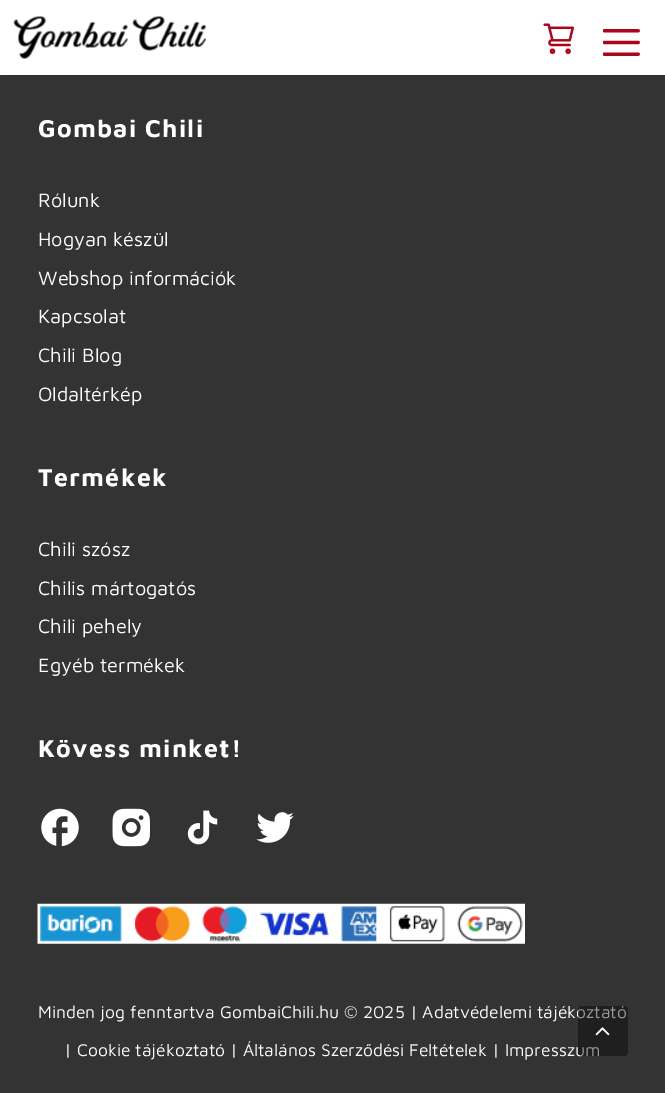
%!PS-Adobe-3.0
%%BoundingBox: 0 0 665 1093
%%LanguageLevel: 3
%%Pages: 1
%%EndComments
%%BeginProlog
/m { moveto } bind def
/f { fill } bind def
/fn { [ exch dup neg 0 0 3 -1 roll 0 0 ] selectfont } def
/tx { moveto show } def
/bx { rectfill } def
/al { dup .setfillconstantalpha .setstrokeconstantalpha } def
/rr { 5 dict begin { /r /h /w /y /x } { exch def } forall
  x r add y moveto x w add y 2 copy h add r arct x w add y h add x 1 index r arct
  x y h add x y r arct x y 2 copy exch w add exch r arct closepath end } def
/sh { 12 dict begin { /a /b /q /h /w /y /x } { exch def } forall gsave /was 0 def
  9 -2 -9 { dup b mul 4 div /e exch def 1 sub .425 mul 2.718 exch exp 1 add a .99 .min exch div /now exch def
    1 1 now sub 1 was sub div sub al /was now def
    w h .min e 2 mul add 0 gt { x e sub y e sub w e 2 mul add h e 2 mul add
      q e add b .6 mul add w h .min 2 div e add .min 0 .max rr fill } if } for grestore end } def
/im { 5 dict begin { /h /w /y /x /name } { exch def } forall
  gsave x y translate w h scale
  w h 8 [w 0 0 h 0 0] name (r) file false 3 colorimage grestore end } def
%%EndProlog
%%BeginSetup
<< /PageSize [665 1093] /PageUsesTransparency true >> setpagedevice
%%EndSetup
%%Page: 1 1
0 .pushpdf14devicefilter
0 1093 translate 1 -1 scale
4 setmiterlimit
0.2 setgray
0 0 665 1093 bx
0 setgray
3 5 660 70 0 1 0.2 sh
1 setgray
0 0 665 75 bx
(image0.raw) 13 16 194 43 im
(image1.raw) 543 23 31 31 im
(image2.raw) 603 29 37 27 im
/MavenPro-Bold 25 fn
38 137 m 1.25 0 (Gombai Chili) ashow
/MavenPro-Regular 20 fn
(Rólunk) 38 207 tx
(Hogyan készül) 38 246 tx
(Webshop információk) 38 285 tx
(Kapcsolat) 38 323 tx
(Chili Blog) 38 362 tx
(Oldaltérkép) 38 401 tx
/MavenPro-Bold 25 fn
38 486 m 1.25 0 (Termékek) ashow
/MavenPro-Regular 20 fn
(Chili szósz) 38 556 tx
(Chilis mártogatós) 38 595 tx
(Chili pehely) 38 633 tx
(Egyéb termékek) 38 672 tx
/MavenPro-Bold 25 fn
38 757 m 1.25 0 (Kövess minket!) ashow
(image3.raw) 41 808 38 39 im
(image4.raw) 112 808 38 39 im
(image5.raw) 187 810 31 35 im
(image6.raw) 256 812 38 31 im
(image7.raw) 37 903 488 41 im
/MavenPro-Regular 17.5 fn
(Minden jog fenntartva GombaiChili.hu © 2025 | Adatvédelemi tájékoztató) 38 1018 tx
(| Cookie tájékoztató | Általános Szerződési Feltételek | Impresszum) 64 1056 tx
0.4 al
0 setgray
578 1006 50 50 4 rr f
1 al
(image8.raw) 595 1027 15 9 im
.poppdf14devicefilter showpage
%%EOF
